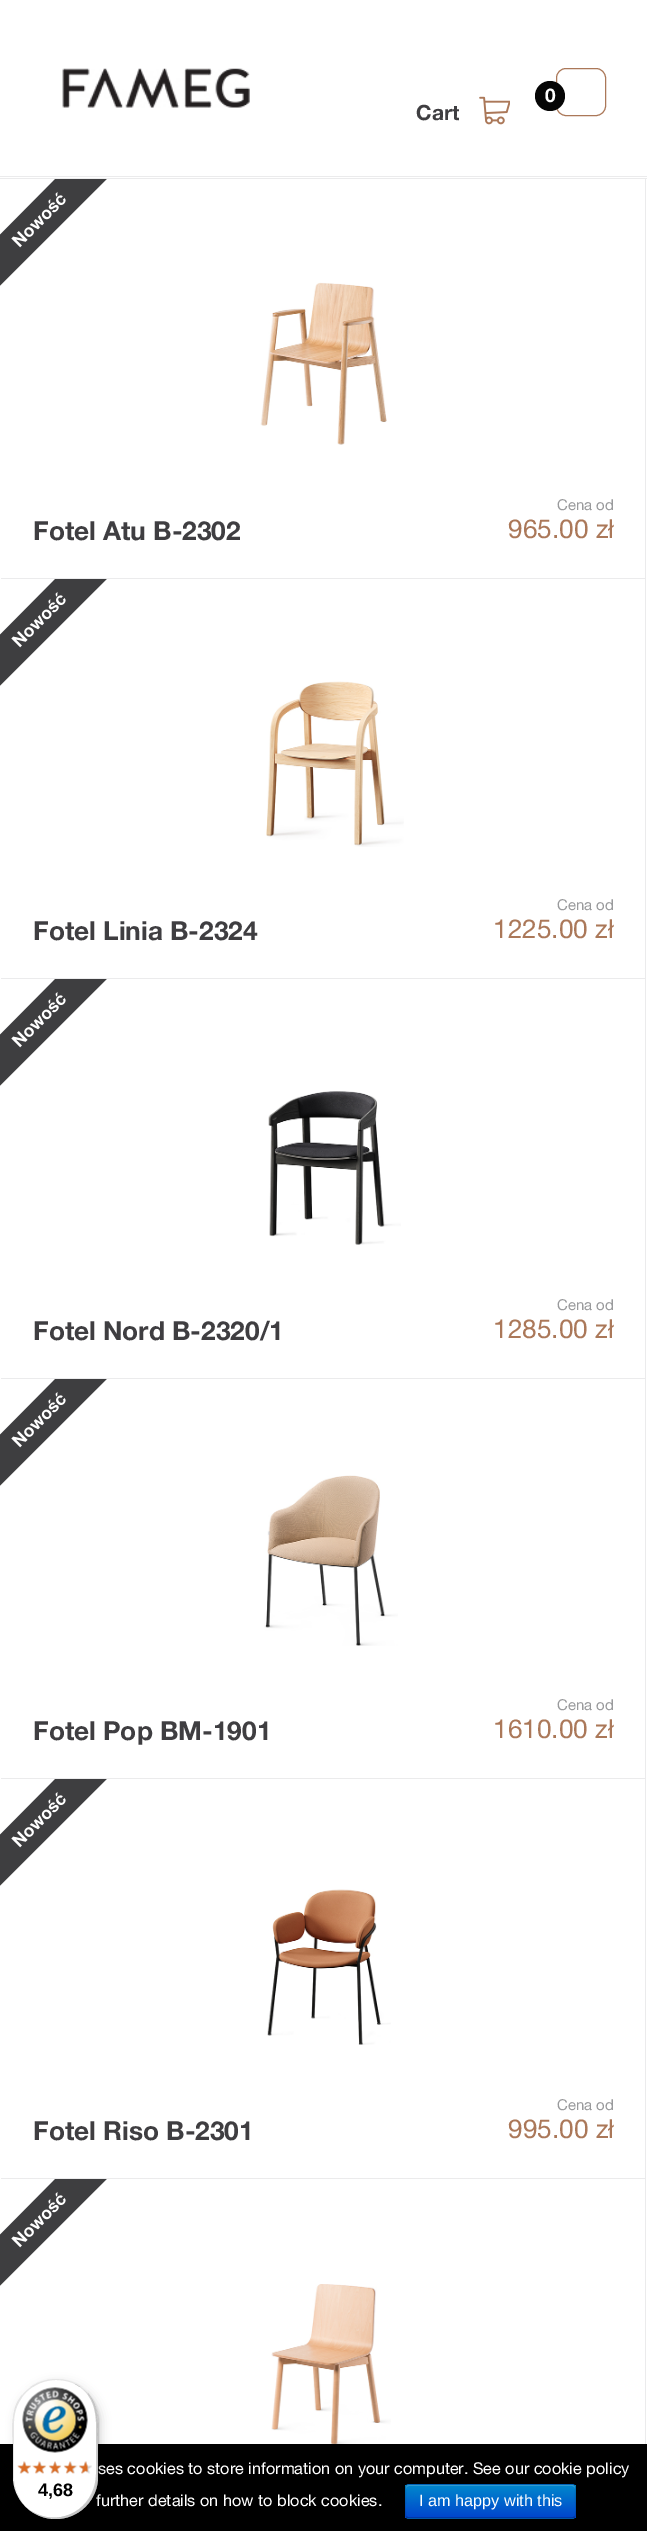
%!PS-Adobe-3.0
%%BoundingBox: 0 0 647 2531
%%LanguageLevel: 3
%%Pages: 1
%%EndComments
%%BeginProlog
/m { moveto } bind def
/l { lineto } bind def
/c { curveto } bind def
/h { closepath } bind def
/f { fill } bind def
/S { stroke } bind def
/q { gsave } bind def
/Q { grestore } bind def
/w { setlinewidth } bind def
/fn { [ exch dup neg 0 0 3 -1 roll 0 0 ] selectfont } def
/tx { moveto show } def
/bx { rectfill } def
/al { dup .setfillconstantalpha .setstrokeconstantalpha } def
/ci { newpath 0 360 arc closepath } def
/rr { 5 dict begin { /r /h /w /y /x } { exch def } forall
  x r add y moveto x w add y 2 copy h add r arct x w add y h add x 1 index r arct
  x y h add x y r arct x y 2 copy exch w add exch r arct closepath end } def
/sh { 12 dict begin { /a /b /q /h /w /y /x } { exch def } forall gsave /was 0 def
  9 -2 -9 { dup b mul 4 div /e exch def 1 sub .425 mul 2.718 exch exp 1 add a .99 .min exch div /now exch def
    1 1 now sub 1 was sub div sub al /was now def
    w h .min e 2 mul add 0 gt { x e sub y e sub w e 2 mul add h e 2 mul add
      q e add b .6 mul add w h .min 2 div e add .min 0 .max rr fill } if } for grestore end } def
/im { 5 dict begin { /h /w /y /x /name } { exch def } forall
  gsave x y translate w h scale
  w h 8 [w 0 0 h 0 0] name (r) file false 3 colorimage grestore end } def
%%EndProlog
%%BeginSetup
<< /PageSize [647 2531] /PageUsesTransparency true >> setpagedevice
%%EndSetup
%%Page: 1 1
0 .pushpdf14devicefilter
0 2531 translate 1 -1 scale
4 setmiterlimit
1 setgray
0 0 647 2531 bx
(image0.raw) 62 68 188 40 im
/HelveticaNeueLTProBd-Bold 21 fn
0.247 0.243 0.255 setrgbcolor
(Cart) 416 120 tx
(image1.raw) 479 96 31 29 im
0.671 0.471 0.349 setrgbcolor
556.5 68.5 49 47 9.5 rr S
0.024 setgray
550 96 15 ci f
/HelveticaNeueLTProBd-Bold 19 fn
1 setgray
(0) 545 102 tx
0.922 0.922 0.925 setrgbcolor
0 176 647 1 bx
0 178 647 1 bx
645 179 1 2265 bx
0 578 646 1 bx
1 setgray
0 578 1 1 bx
(image2.raw) 0 179 107 107 im
(image3.raw) 260 282 127 163 im
/HelveticaNeueLTProBd-Bold 26.25 fn
0.247 0.243 0.255 setrgbcolor
(Fotel Atu B-2302) 33 540 tx
/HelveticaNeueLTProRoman-Regular 15 fn
0.6 0.604 0.612 setrgbcolor
(Cena od) 557 510 tx
/HelveticaNeueLTProRoman-Regular 26.25 fn
0.671 0.471 0.349 setrgbcolor
(965.00 zł) 508 538 tx
0.922 0.922 0.925 setrgbcolor
0 978 646 1 bx
1 setgray
0 978 1 1 bx
(image2.raw) 0 579 107 107 im
(image4.raw) 266 681 138 166 im
/HelveticaNeueLTProBd-Bold 26.25 fn
0.247 0.243 0.255 setrgbcolor
(Fotel Linia B-2324) 33 940 tx
/HelveticaNeueLTProRoman-Regular 15 fn
0.6 0.604 0.612 setrgbcolor
(Cena od) 557 910 tx
/HelveticaNeueLTProRoman-Regular 26.25 fn
0.671 0.471 0.349 setrgbcolor
(1225.00 zł) 493 938 tx
0.922 0.922 0.925 setrgbcolor
0 1378 646 1 bx
1 setgray
0 1378 1 1 bx
(image2.raw) 0 979 107 107 im
(image5.raw) 268 1091 133 154 im
/HelveticaNeueLTProBd-Bold 26.25 fn
0.247 0.243 0.255 setrgbcolor
(Fotel Nord B-2320/1) 33 1340 tx
/HelveticaNeueLTProRoman-Regular 15 fn
0.6 0.604 0.612 setrgbcolor
(Cena od) 557 1310 tx
/HelveticaNeueLTProRoman-Regular 26.25 fn
0.671 0.471 0.349 setrgbcolor
(1285.00 zł) 493 1338 tx
0.922 0.922 0.925 setrgbcolor
0 1778 646 1 bx
1 setgray
0 1778 1 1 bx
(image2.raw) 0 1379 107 107 im
(image6.raw) 264 1475 134 171 im
/HelveticaNeueLTProBd-Bold 26.25 fn
0.247 0.243 0.255 setrgbcolor
(Fotel Pop BM-1901) 33 1740 tx
/HelveticaNeueLTProRoman-Regular 15 fn
0.6 0.604 0.612 setrgbcolor
(Cena od) 557 1710 tx
/HelveticaNeueLTProRoman-Regular 26.25 fn
0.671 0.471 0.349 setrgbcolor
(1610.00 zł) 493 1738 tx
0.922 0.922 0.925 setrgbcolor
0 2178 646 1 bx
1 setgray
0 2178 1 1 bx
(image2.raw) 0 1779 107 107 im
(image7.raw) 267 1889 124 156 im
/HelveticaNeueLTProBd-Bold 26.25 fn
0.247 0.243 0.255 setrgbcolor
(Fotel Riso B-2301) 33 2140 tx
/HelveticaNeueLTProRoman-Regular 15 fn
0.6 0.604 0.612 setrgbcolor
(Cena od) 557 2110 tx
/HelveticaNeueLTProRoman-Regular 26.25 fn
0.671 0.471 0.349 setrgbcolor
(995.00 zł) 508 2138 tx
(image2.raw) 0 2179 107 107 im
(image8.raw) 271 2284 120 160 im
0 setgray
0 2444 647 87 bx
/HelveticaNeueLTProRoman-Regular 16.25 fn
1 setgray
(ses cookies to store information on your computer. See our cookie policy) 98 2474 tx
(further details on how to block cookies.) 96 2506 tx
0 0.427 0.8 setrgbcolor
405 2484 171 35 4 rr f
q
405 2484 171 35 4 rr clip newpath
q 405 2485 m 576 2485 l 576 2518 l 405 2518 l h clip newpath
<< /ShadingType 2 /ColorSpace /DeviceRGB /Coords [491 2485 491 2518] /Extend [true true] /Function << /FunctionType 2 /Domain [0 1] /C0 [0 0.533 0.8] /C1 [0 0.267 0.8] /N 1 >> >> shfill Q
Q
0.2 0.624 0.839 setrgbcolor
409 2486 m 572 2486 l 574 2486 575 2487 575 2489 c 575 2488 l 575 2486 574 2485 572 2485 c 408 2485 l 407 2485 406 2486 406 2488 c 406 2489 l 406 2487 407 2486 409 2486 c h f
0.25 al
0 setgray
1.2 w
574.5 2517 m 572.5 2518 l 408.5 2518 l 406.5 2517 l S
0.1 al
406.5 2517 m 404.5 2515 405.5 2504 405.5 2501 c 405.5 2492 l 405.5 2489.5 404.5 2484.5 409 2484.5 c 572.5 2484.5 l 576.5 2484.5 575.5 2489.5 575.5 2492 c 575.5 2501 l 575.5 2504 577 2515 574.5 2517 c S
/LiberationSans-Regular 16.25 fn
1 al
1 setgray
(I am happy with this) 419 2506 tx
0 setgray
16 2383 85 140 42.5 5 0.15 sh
14 2380 85 140 42.5 1 0.15 sh
1 setgray
13 2379 85 140 42.5 rr f
0.1 al
0 setgray
56 2380 m 68 2380 78 2384 86 2392 c 65 2370 28 2377 16 2405 c 11 2417 13 2435 13 2449 c 13 2468 10 2489 24 2505 c 18 2497 14 2488 14 2478 c 14 2422 l 14 2399 33 2380 56 2380 c h f
0.2 al
31 2511 m 38 2516 46 2519 56 2519 c 79 2519 98 2500 98 2476 c 98 2422 l 98 2405 89 2391 75 2384 c 100 2398 96 2423 96 2448 c 96 2458 97 2473 95 2483 c 89 2513 56 2527 31 2511 c h f
0.196 setgray
27 2508 m 49 2527 83 2520 95 2493 c 100 2481 98 2463 98 2449 c 98 2428 101 2407 86 2391 c 100 2407 97 2428 97 2448 c 97 2461 99 2480 94 2492 c 82 2518 49 2526 27 2508 c h f
0.3 al
1 setgray
27 2508 m 35 2515 45 2519 56 2519 c 79 2519 98 2500 98 2476 c 98 2422 l 98 2409 92 2397 83 2389 c 101 2405 97 2427 97 2448 c 97 2462 99 2480 94 2492 c 82 2518 49 2526 27 2508 c h f
1 al
(image9.raw) 22 2387 66 66 im
(image15.raw) 18 2461 13 13 im
(image10.raw) 17 2461 15 13 im
(image16.raw) 34 2461 12 13 im
(image11.raw) 32 2461 15 13 im
(image17.raw) 49 2461 12 13 im
(image12.raw) 48 2461 14 13 im
(image18.raw) 64 2461 14 13 im
(image13.raw) 63 2461 14 13 im
(image19.raw) 79 2461 13 13 im
(image14.raw) 78 2461 10 13 im
/LiberationSans-Bold 18 fn
0 setgray
(4,68) 38 2496 tx
.poppdf14devicefilter showpage
%%EOF
